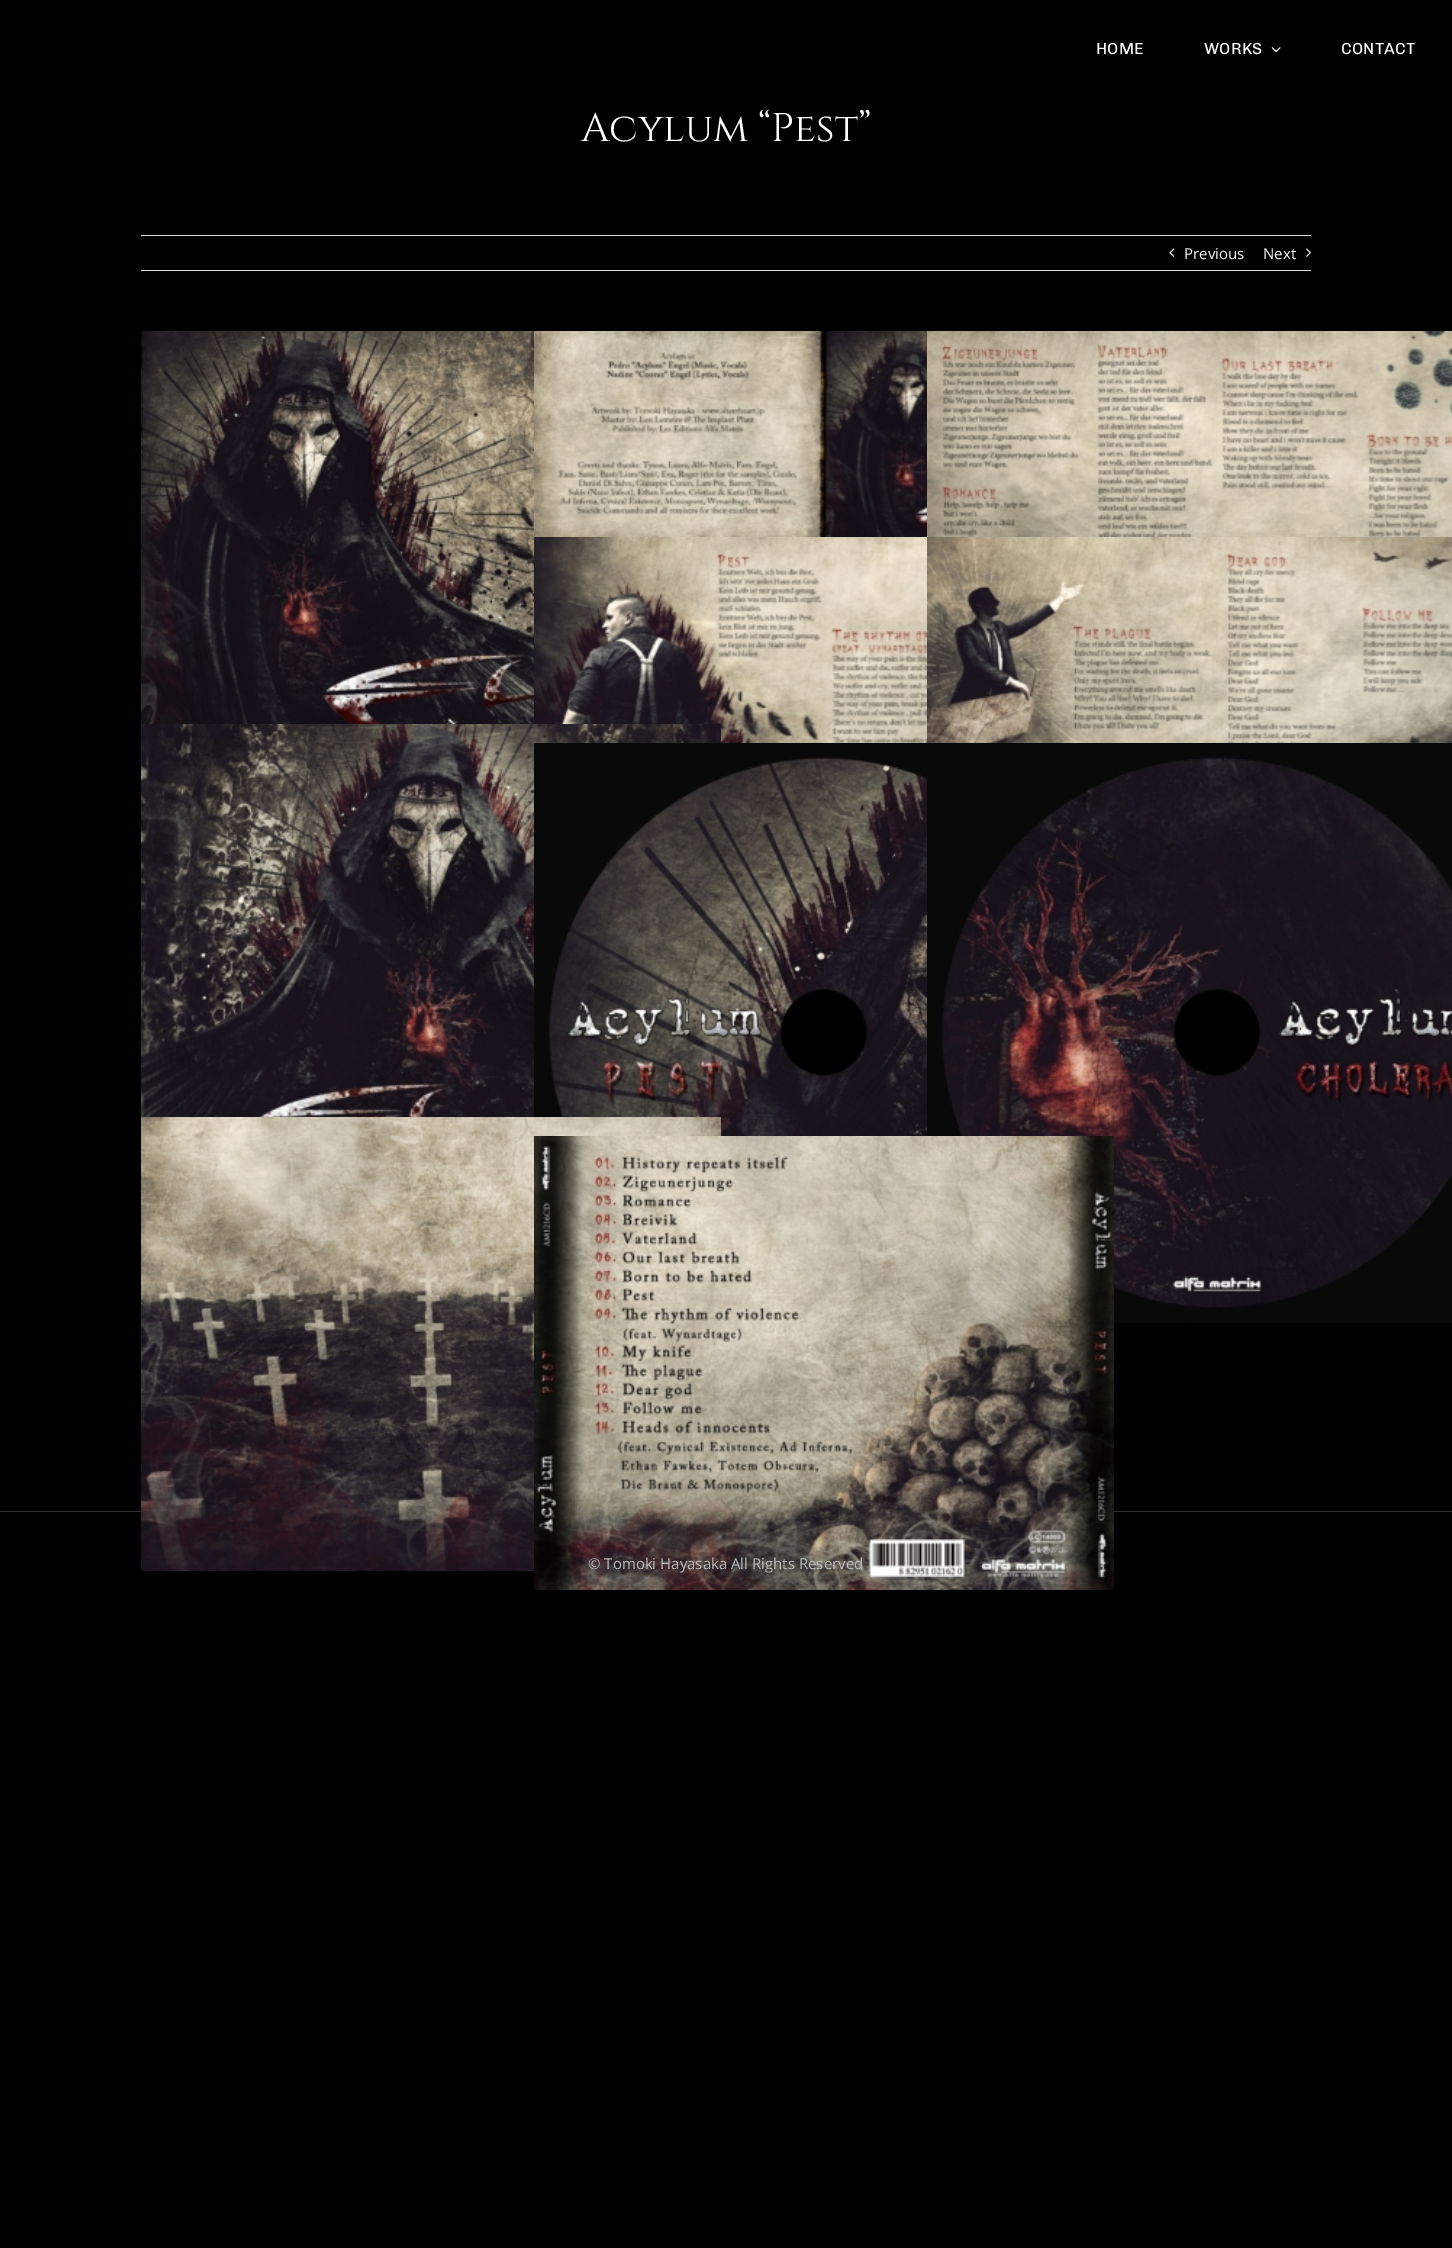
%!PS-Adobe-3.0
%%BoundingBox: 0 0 1452 2248
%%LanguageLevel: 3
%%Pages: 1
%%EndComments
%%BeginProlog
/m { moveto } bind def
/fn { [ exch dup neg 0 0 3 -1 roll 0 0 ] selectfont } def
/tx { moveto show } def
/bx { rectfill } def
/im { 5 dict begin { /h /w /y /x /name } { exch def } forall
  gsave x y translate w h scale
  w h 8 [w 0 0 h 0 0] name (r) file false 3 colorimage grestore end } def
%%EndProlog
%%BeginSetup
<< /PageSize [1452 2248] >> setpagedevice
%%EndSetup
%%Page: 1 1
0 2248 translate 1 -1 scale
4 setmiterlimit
0 setgray
0 0 1452 2248 bx
/Chivo-Regular 16 fn
1 setgray
1096 54 m 0.25 0 (HOME) ashow
1204 54 m 0.25 0 (WORKS) ashow
(image0.raw) 1271 47 10 6 im
1341 54 m 0.25 0 (CONTACT) ashow
/Cinzel-Regular 40 fn
(Acylum “Pest”) 581 141 tx
0.878 0.871 0.871 setrgbcolor
141 235 1170 1 bx
141 270 1170 1 bx
(image1.raw) 1169 248 6 9 im
/OpenSans-Regular 15 fn
1 setgray
(Previous) 1184 259 tx
(Next) 1263 259 tx
(image2.raw) 1306 248 5 9 im
(image3.raw) 141 331 393 393 im
(image4.raw) 534 331 393 206 im
(image5.raw) 927 331 525 206 im
(image6.raw) 534 537 393 206 im
(image7.raw) 927 537 525 206 im
(image8.raw) 141 724 580 393 im
(image9.raw) 534 743 393 393 im
(image10.raw) 927 743 525 580 im
0.184 setgray
0 1511 1452 1 bx
(image11.raw) 141 1117 580 454 im
(image12.raw) 534 1136 580 454 im
0.737 setgray
(© Tomoki Hayasaka All Rights Reserved) 588 1569 tx
showpage
%%EOF
